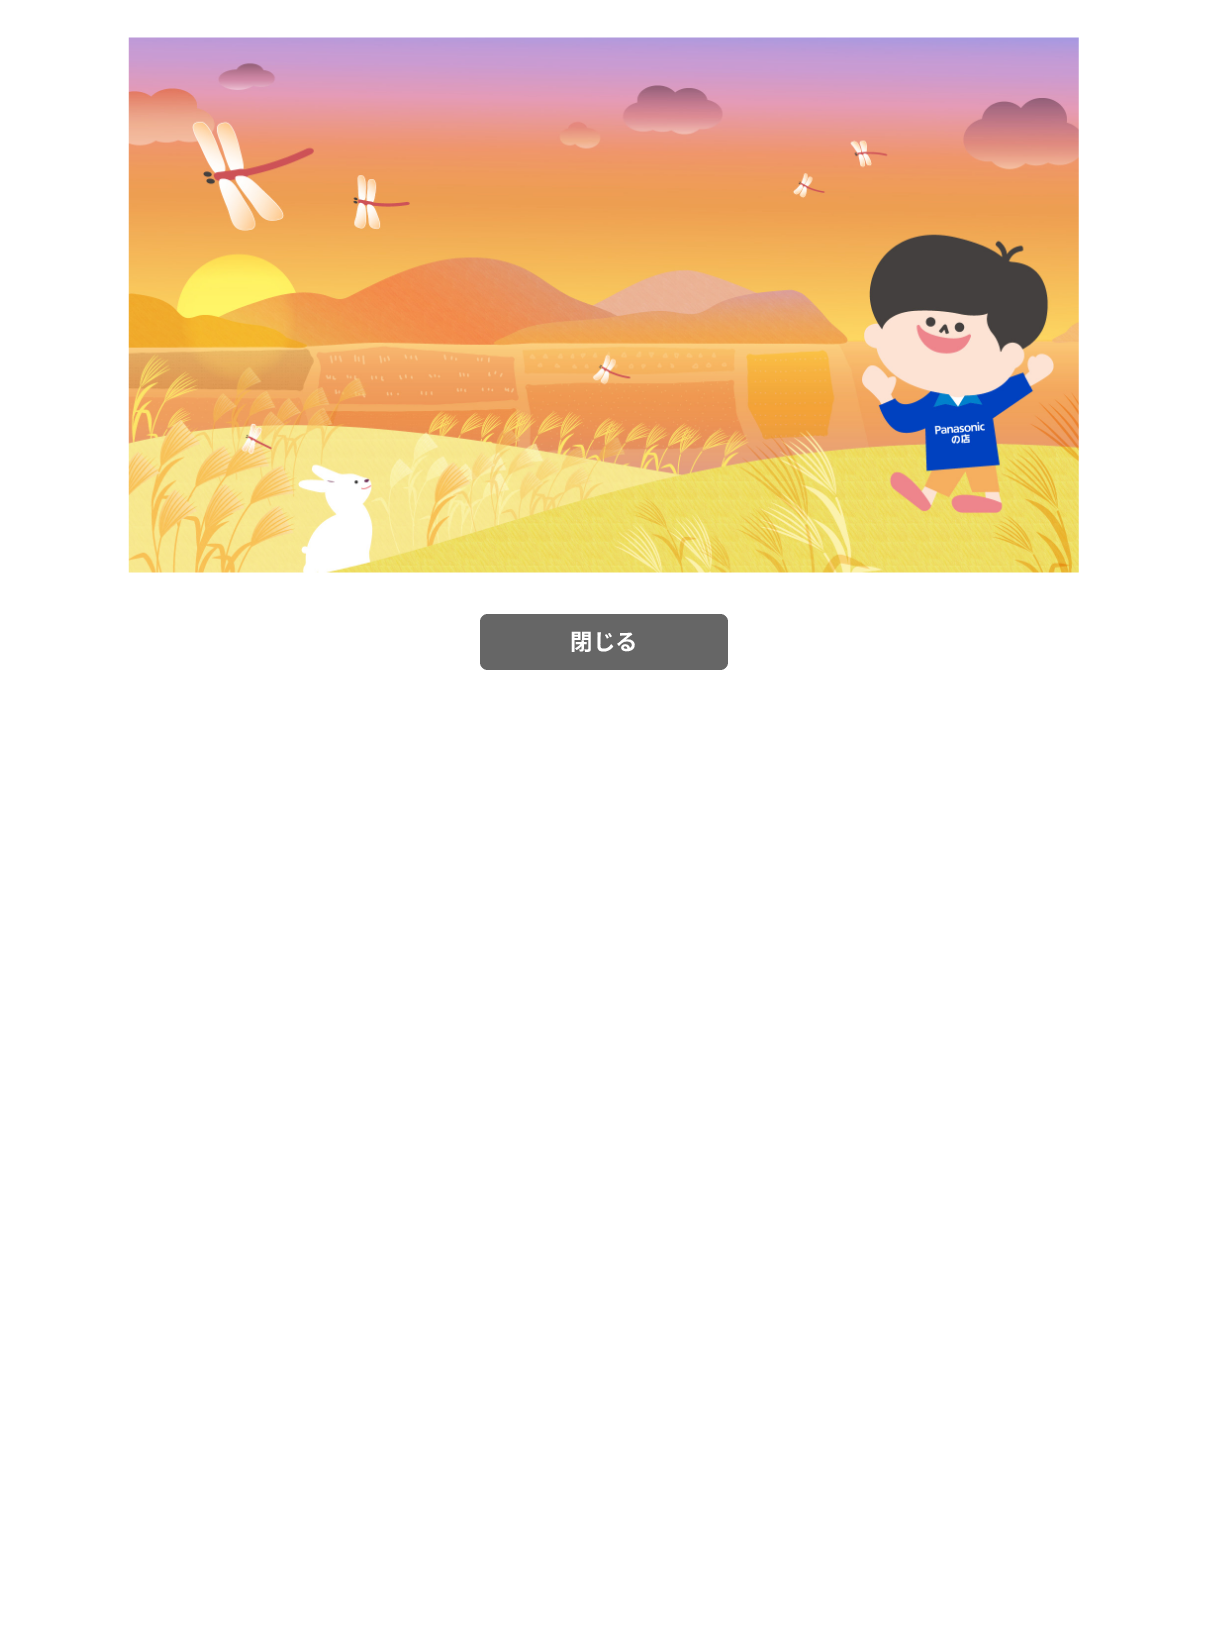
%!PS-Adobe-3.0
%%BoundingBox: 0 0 1207 1629
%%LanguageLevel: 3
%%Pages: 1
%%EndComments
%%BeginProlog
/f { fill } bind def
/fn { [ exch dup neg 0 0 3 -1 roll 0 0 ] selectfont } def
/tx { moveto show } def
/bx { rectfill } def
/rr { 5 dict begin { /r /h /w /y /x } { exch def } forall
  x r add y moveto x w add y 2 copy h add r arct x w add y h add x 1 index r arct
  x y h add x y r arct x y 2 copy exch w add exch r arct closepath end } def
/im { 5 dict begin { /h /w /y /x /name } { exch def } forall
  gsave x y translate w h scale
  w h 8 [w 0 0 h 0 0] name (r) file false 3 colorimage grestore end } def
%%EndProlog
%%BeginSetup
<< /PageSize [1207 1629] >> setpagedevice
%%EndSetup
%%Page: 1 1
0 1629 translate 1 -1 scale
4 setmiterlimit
1 setgray
0 0 1207 1629 bx
(image0.raw) 128 37 951 536 im
0.4 setgray
480 614 248 56 8 rr f
/NotoSansCJKJP-Bold 22.5 fn
1 setgray
(閉じる) 570 650 tx
showpage
%%EOF
